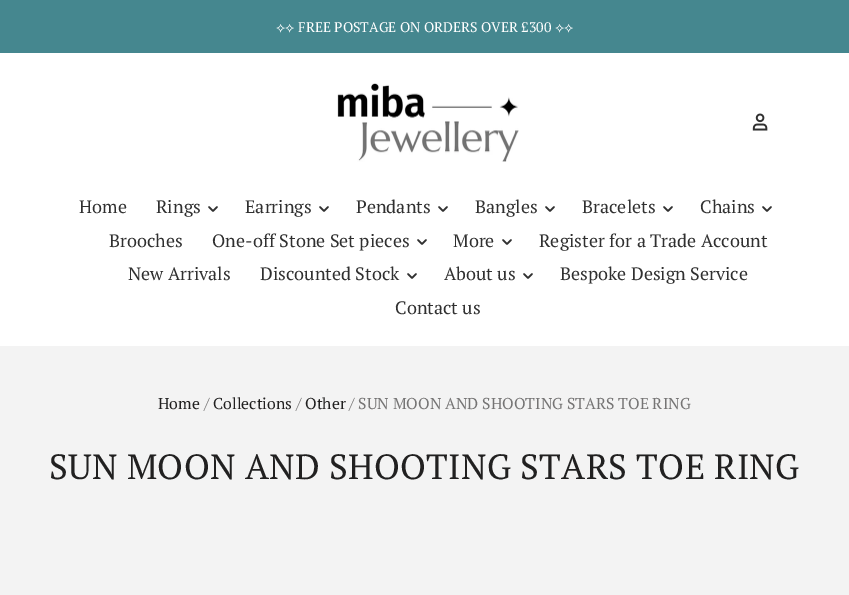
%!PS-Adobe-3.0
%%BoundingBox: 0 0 849 595
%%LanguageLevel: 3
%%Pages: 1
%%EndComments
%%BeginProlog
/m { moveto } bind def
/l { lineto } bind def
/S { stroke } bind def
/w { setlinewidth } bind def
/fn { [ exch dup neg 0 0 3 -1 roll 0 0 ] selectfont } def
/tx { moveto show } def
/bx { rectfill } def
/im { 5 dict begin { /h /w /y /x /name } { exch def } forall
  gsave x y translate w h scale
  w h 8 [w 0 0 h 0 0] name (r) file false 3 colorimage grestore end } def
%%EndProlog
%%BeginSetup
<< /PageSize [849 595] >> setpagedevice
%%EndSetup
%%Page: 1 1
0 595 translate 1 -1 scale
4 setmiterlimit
0.953 setgray
0 0 849 595 bx
0.271 0.529 0.561 setrgbcolor
0 0 849 53 bx
/FreeSerif-Regular 14 fn
1 setgray
(⟡⟡) 276 32 tx
/PTSerif-Regular 14 fn
(FREE POSTAGE ON ORDERS OVER £300) 298 32 tx
/FreeSerif-Regular 14 fn
(⟡⟡) 555 32 tx
0 53 849 293 bx
(image0.raw) 337 83 182 79 im
(image1.raw) 752 113 16 18 im
/PTSerif-Regular 18 fn
0.188 setgray
(Home) 79 213 tx
(Rings) 156 213 tx
1.6 w
1 setlinecap
1 setlinejoin
209 207 m 213 211 l 217 207 l S
(Earrings) 245 213 tx
320 207 m 324 211 l 328 207 l S
(Pendants) 356 213 tx
439 207 m 443 211 l 447 207 l S
(Bangles) 475 213 tx
546 207 m 550 211 l 554 207 l S
(Bracelets) 582 213 tx
664 207 m 668 211 l 672 207 l S
(Chains) 700 213 tx
763 207 m 767 211 l 771 207 l S
(Brooches) 109 247 tx
(One-off Stone Set pieces) 212 247 tx
418 240 m 422 244 l 426 240 l S
(More) 453 247 tx
503 240 m 507 244 l 511 240 l S
(Register for a Trade Account) 539 247 tx
(New Arrivals) 128 280 tx
(Discounted Stock) 260 280 tx
408 274 m 412 278 l 416 274 l S
(About us) 444 280 tx
524 274 m 528 278 l 532 274 l S
(Bespoke Design Service) 560 280 tx
(Contact us) 395 314 tx
/PTSerif-Regular 15.75 fn
0.129 0.125 0.125 setrgbcolor
(Home) 158 409 tx
0.459 0.455 0.455 setrgbcolor
(/) 204 409 tx
0.129 0.125 0.125 setrgbcolor
(Collections) 213 409 tx
0.459 0.455 0.455 setrgbcolor
(/) 296 409 tx
0.129 0.125 0.125 setrgbcolor
(Other) 305 409 tx
0.459 0.455 0.455 setrgbcolor
(/ SUN MOON AND SHOOTING STARS TOE RING) 349 409 tx
/PTSerif-Regular 35 fn
0.129 0.125 0.125 setrgbcolor
49 479 m 0.35 0 (SUN MOON AND SHOOTING STARS TOE RING) ashow
showpage
%%EOF
